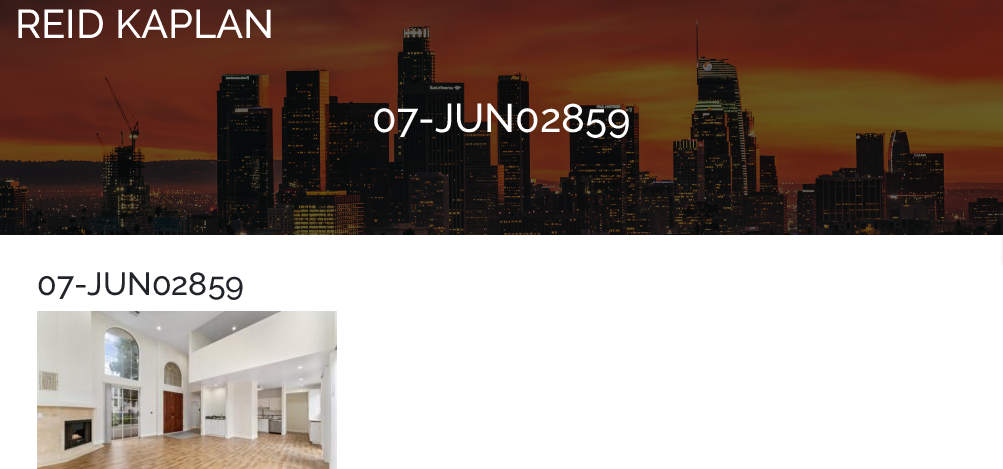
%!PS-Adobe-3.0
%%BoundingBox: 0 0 1003 469
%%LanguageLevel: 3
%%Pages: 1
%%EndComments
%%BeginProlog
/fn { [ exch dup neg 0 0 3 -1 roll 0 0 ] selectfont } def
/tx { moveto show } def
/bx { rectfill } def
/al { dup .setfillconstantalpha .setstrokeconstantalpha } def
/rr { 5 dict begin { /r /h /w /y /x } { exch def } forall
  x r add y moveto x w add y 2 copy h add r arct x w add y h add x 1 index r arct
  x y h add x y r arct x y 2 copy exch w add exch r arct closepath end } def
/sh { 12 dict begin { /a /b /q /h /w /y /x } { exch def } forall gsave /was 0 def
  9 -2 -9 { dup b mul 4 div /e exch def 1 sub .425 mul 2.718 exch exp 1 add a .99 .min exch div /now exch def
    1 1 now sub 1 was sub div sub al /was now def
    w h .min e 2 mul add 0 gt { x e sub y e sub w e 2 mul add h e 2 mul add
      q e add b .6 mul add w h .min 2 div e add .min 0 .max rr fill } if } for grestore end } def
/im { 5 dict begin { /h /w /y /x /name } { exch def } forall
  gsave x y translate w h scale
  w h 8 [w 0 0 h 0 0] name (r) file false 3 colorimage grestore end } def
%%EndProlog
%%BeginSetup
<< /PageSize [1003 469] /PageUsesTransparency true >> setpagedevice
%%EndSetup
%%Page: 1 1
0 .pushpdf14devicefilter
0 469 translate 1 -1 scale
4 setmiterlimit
1 setgray
0 0 1003 469 bx
(image0.raw) 0 0 1003 235 im
/Raleway-Medium 40 fn
(REID KAPLAN) 15 38 tx
(07-JUN02859) 372 132 tx
0.467 setgray
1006 209 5 54 0 2.5 1 sh
/Raleway-Medium 32 fn
0.129 0.145 0.161 setrgbcolor
(07-JUN02859) 37 295 tx
(image1.raw) 37 311 300 158 im
.poppdf14devicefilter showpage
%%EOF
